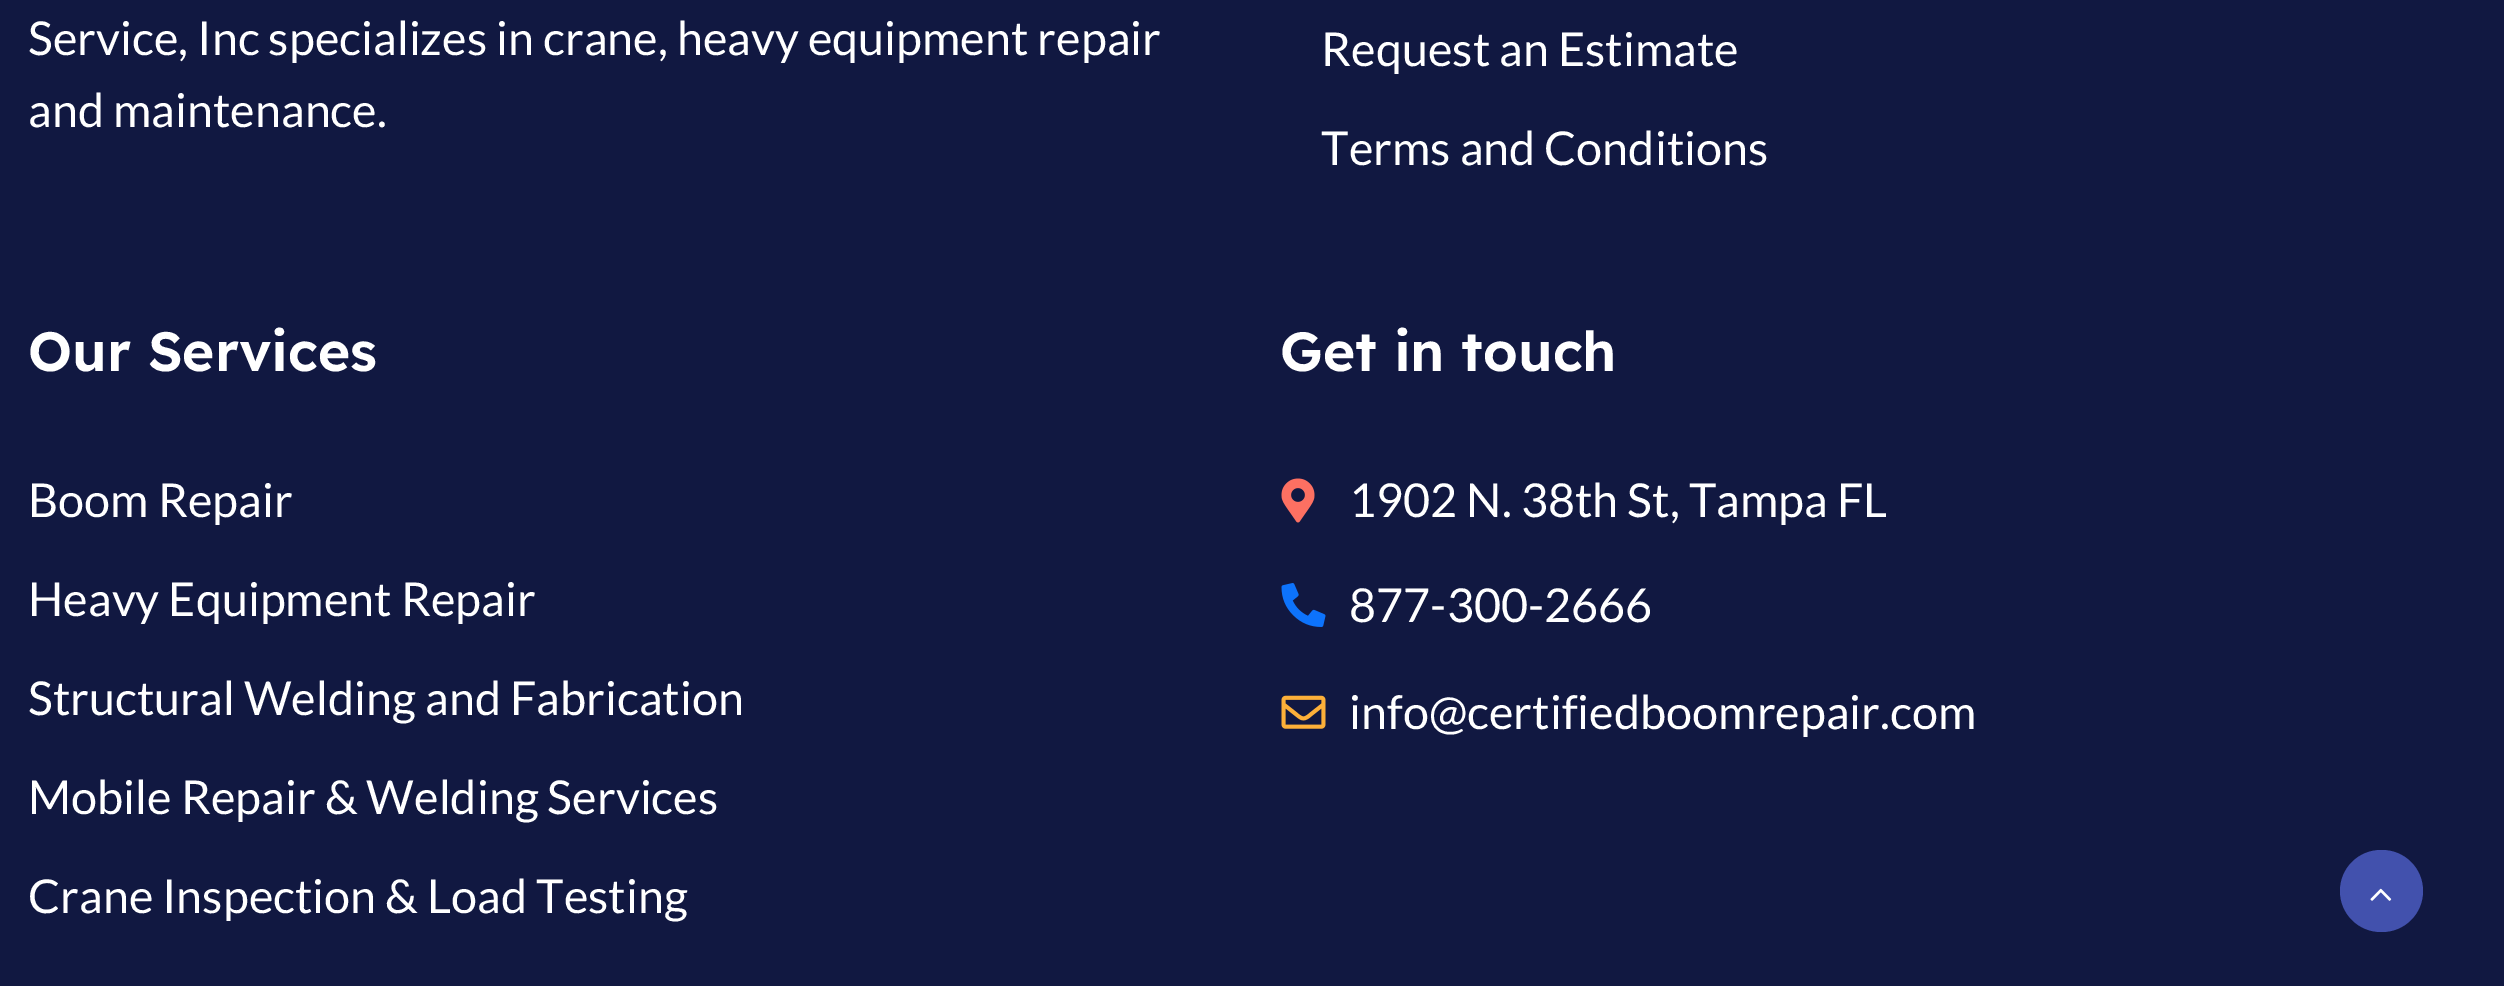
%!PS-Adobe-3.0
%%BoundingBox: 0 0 2504 986
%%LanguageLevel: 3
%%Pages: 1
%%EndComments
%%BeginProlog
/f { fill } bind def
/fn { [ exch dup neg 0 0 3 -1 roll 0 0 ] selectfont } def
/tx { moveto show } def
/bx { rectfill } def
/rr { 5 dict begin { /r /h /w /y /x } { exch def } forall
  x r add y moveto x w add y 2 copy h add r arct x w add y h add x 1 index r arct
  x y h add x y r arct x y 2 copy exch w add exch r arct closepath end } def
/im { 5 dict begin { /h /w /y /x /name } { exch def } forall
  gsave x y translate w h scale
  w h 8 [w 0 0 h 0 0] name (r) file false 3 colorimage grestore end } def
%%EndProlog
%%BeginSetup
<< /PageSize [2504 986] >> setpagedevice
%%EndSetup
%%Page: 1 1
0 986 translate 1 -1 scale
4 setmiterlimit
0.067 0.094 0.255 setrgbcolor
0 0 2504 986 bx
/Lato-Regular 46.75 fn
1 setgray
(Service, Inc specializes in crane, heavy equipment repair) 28 55 tx
(and maintenance.) 28 127 tx
(Request an Estimate) 1321 66 tx
(Terms and Conditions) 1321 165 tx
/Lexend-SemiBold 55 fn
(Our Services) 28 371 tx
/Lato-Regular 46.75 fn
(Boom Repair) 28 517 tx
(Heavy Equipment Repair) 28 616 tx
(Structural Welding and Fabrication) 28 715 tx
(Mobile Repair & Welding Services) 28 814 tx
(Crane Inspection & Load Testing) 28 913 tx
/Lexend-SemiBold 55 fn
(Get in touch) 1280 371 tx
(image0.raw) 1281 478 34 45 im
/Lato-Regular 46.75 fn
(1902 N. 38th St, Tampa FL) 1349 517 tx
(image1.raw) 1281 583 45 44 im
(877-300-2666) 1349 622 tx
(image2.raw) 1281 695 45 34 im
(info@certifiedboomrepair.com) 1349 729 tx
0.259 0.318 0.678 setrgbcolor
2340 850 83 82 41 rr f
(image3.raw) 2370 888 22 13 im
showpage
%%EOF
